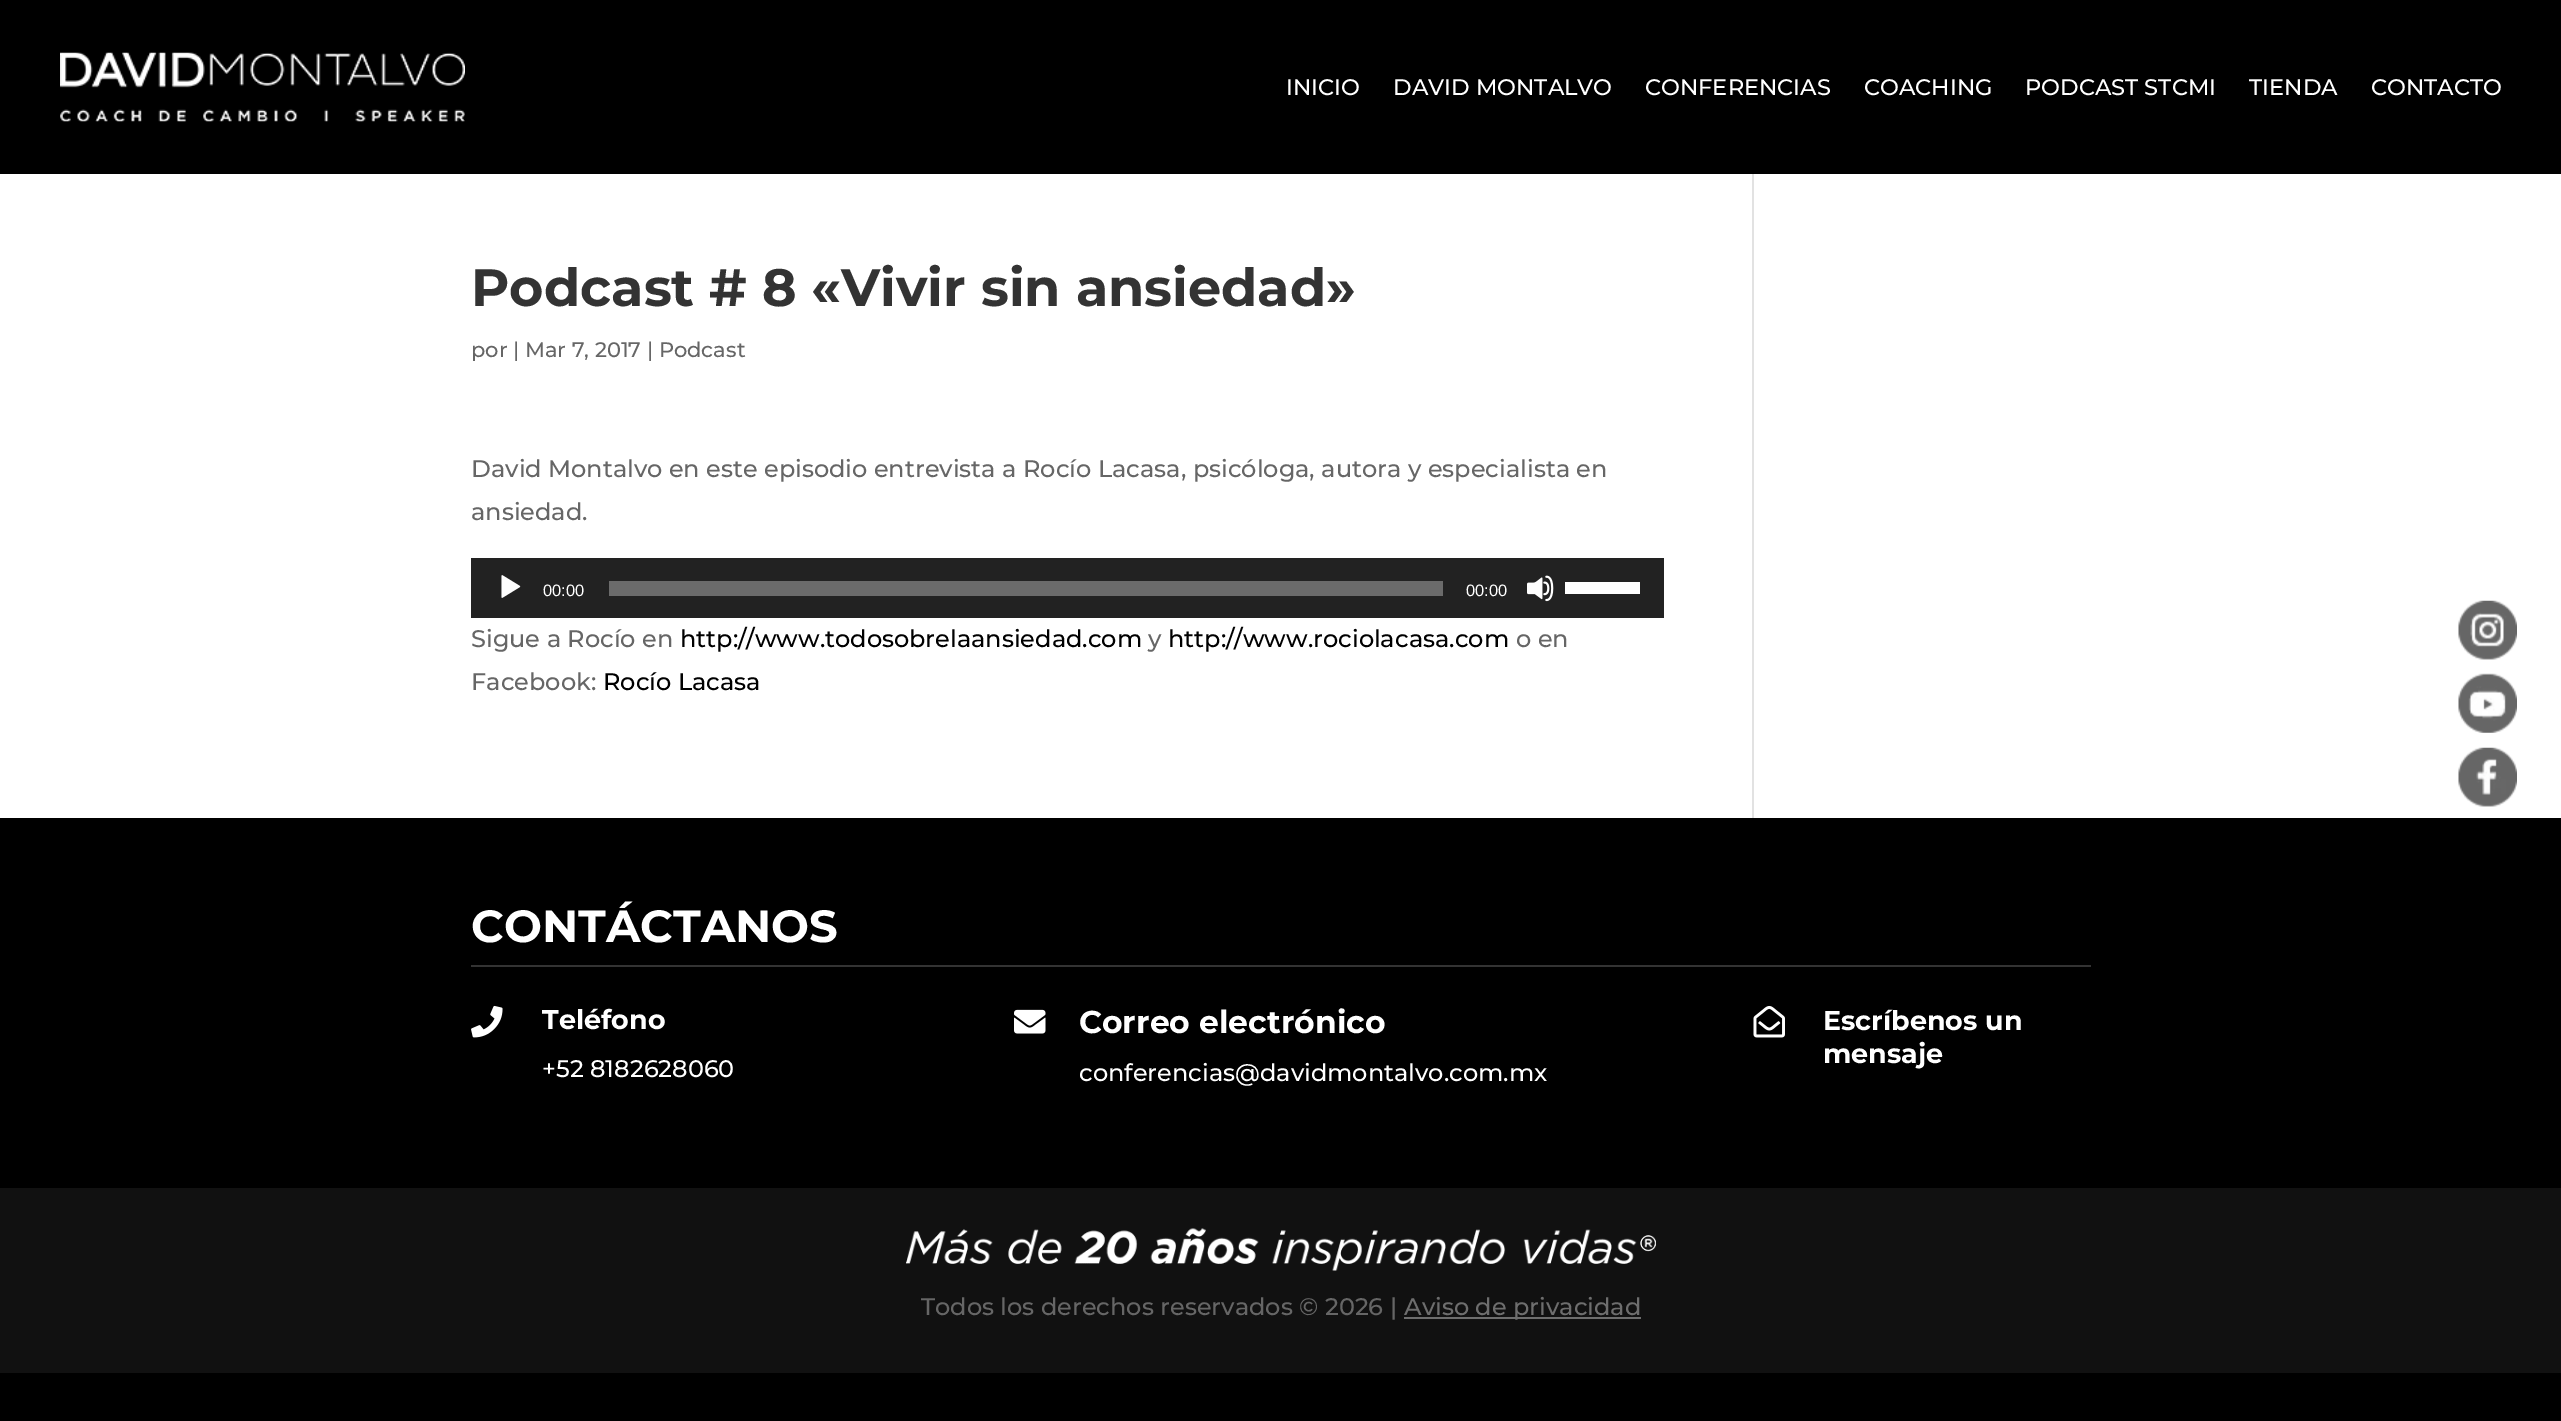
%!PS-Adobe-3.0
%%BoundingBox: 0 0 2561 1421
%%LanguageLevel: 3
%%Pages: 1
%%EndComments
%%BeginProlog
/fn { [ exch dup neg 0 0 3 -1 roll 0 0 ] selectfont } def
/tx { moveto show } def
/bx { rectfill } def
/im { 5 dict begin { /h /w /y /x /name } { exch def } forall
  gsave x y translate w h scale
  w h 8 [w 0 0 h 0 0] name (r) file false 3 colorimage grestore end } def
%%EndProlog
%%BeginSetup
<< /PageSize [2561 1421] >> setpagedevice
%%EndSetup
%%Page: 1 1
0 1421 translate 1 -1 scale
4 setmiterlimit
0 setgray
0 0 2561 1421 bx
(image0.raw) 60 52 405 70 im
/Montserrat-Medium 22.5 fn
1 setgray
(INICIO) 1286 95 tx
(DAVID MONTALVO) 1393 95 tx
(CONFERENCIAS) 1645 95 tx
(COACHING) 1864 95 tx
(PODCAST STCMI) 2025 95 tx
(TIENDA) 2249 95 tx
(CONTACTO) 2371 95 tx
0 174 2561 644 bx
/Montserrat-Bold 52.5 fn
0.2 setgray
(Podcast # 8 «Vivir sin ansiedad») 471 306 tx
/Montserrat-Medium 21 fn
0.4 setgray
(por | Mar 7, 2017 | Podcast) 471 357 tx
/Montserrat-Medium 24 fn
(David Montalvo en este episodio entrevista a Rocío Lacasa, psicóloga, autora y especialista en) 471 477 tx
(ansiedad.) 471 520 tx
0.133 setgray
471 558 1193 60 bx
(image1.raw) 501 575 20 23 im
/LiberationSans-Regular 16.5 fn
1 setgray
(00:00) 543 596 tx
0.42 setgray
609 581 834 15 bx
1 setgray
(00:00) 1466 596 tx
(image2.raw) 1527 575 27 27 im
1565 582 75 12 bx
/Montserrat-Medium 24 fn
0.4 setgray
(Sigue a Rocío en) 471 647 tx
0 setgray
(http://www.todosobrelaansiedad.com) 680 647 tx
0.4 setgray
(y) 1148 647 tx
0 setgray
(http://www.rociolacasa.com) 1168 647 tx
0.4 setgray
(o en) 1516 647 tx
(Facebook:) 471 690 tx
0 setgray
(Rocío Lacasa) 603 690 tx
0.886 setgray
1752 174 2 644 bx
0.2 setgray
471 965 1620 2 bx
/Montserrat-Bold 45 fn
1 setgray
(CONTÁCTANOS) 471 942 tx
(image3.raw) 471 1005 32 33 im
/Montserrat-Bold 27 fn
(Teléfono) 542 1029 tx
/Montserrat-Medium 24 fn
(+52 8182628060) 542 1077 tx
(image4.raw) 1014 1009 32 25 im
/Montserrat-Bold 31.5 fn
(Correo electrónico) 1079 1033 tx
/Montserrat-Medium 24 fn
(conferencias@davidmontalvo.com.mx) 1079 1081 tx
(image5.raw) 1753 1005 32 33 im
/Montserrat-Bold 27 fn
(Escríbenos un) 1823 1030 tx
(mensaje) 1823 1063 tx
0.067 setgray
0 1188 2561 185 bx
(image6.raw) 2458 600 59 60 im
(image7.raw) 2458 673 59 60 im
(image8.raw) 2458 747 59 60 im
(image9.raw) 906 1228 750 43 im
/Montserrat-Medium 24 fn
0.4 setgray
(Todos los derechos reservados © 2026 |) 921 1315 tx
0.431 setgray
1404 1317 237 2 bx
(Aviso de privacidad) 1404 1315 tx
showpage
%%EOF
